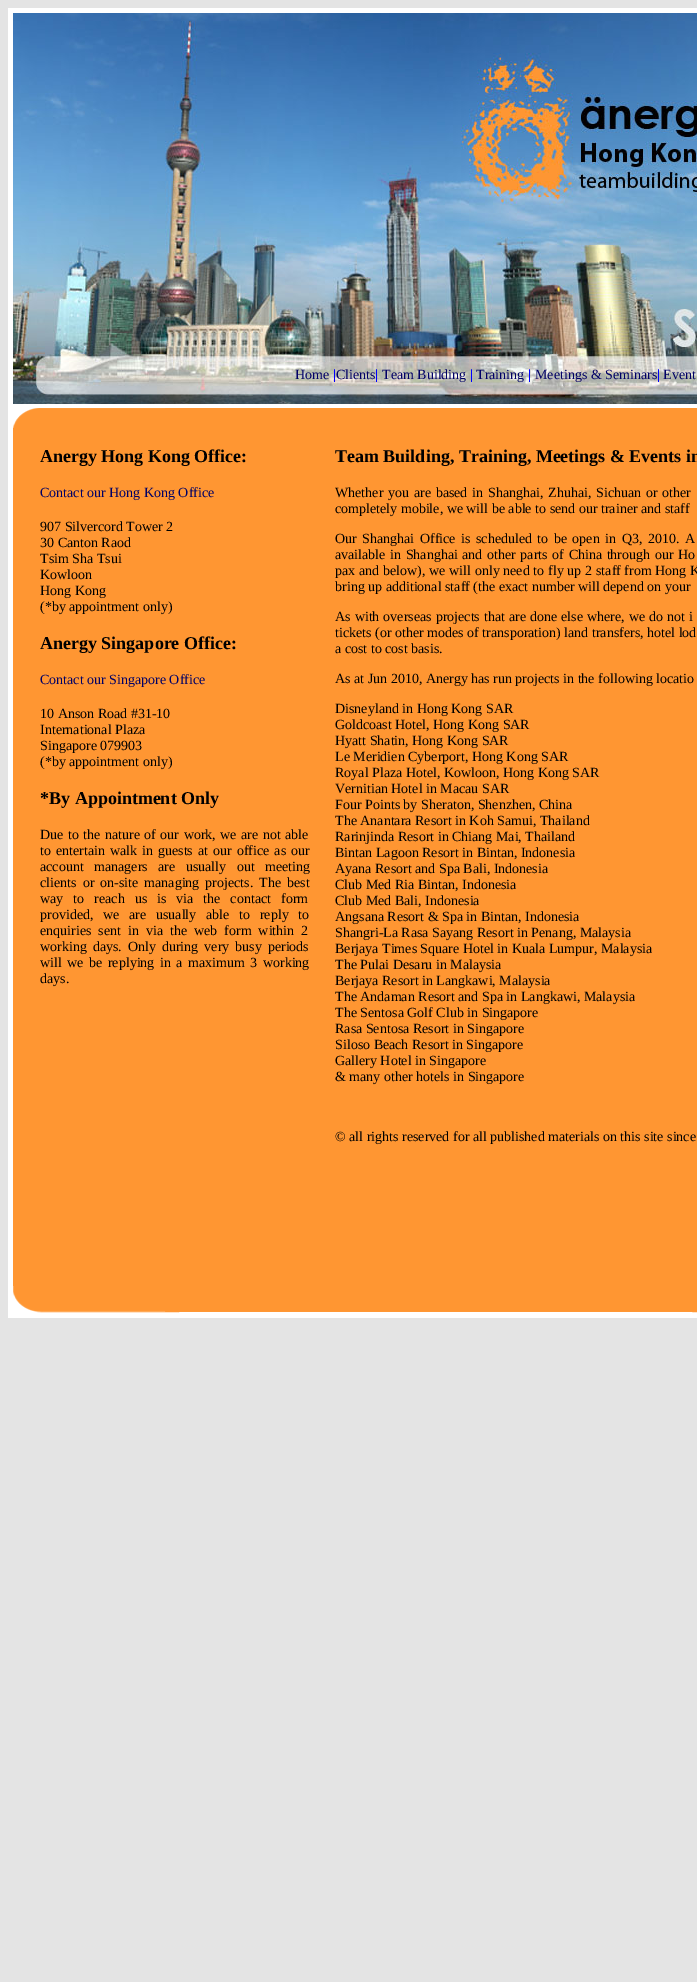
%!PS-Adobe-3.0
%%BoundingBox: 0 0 697 1982
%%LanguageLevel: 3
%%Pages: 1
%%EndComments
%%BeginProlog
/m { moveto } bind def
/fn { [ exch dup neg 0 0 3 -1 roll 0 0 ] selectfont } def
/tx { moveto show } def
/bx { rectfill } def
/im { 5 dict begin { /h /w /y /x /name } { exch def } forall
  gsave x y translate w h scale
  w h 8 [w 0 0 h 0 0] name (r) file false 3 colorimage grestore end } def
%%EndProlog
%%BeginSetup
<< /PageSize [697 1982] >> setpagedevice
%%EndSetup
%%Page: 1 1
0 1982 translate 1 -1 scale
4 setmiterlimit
0.894 setgray
0 0 697 1982 bx
1 setgray
8 8 689 1310 bx
(image0.raw) 13 13 684 333 im
(image1.raw) 13 346 684 58 im
/LiberationSerif-Regular 14 fn
0 0 0.4 setrgbcolor
(Home) 295 379 tx
/LiberationSerif-Bold 14 fn
0 0 1 setrgbcolor
(|) 333 379 tx
/LiberationSerif-Regular 14 fn
0 0 0.4 setrgbcolor
(Clients) 336 379 tx
/LiberationSerif-Bold 14 fn
0 0 1 setrgbcolor
(|) 375 379 tx
/LiberationSerif-Regular 14 fn
0 0 0.4 setrgbcolor
(Team Building) 382 379 tx
/LiberationSerif-Bold 14 fn
0 0 1 setrgbcolor
(|) 470 379 tx
/LiberationSerif-Regular 14 fn
0 0 0.4 setrgbcolor
(Training) 476 379 tx
/LiberationSerif-Bold 14 fn
0 0 1 setrgbcolor
(|) 528 379 tx
/LiberationSerif-Regular 14 fn
0 0 0.4 setrgbcolor
(Meetings & Seminars) 535 379 tx
/LiberationSerif-Bold 14 fn
0 0 1 setrgbcolor
(|) 657 379 tx
/LiberationSerif-Regular 14 fn
0 0 0.4 setrgbcolor
(Event) 663 379 tx
(image2.raw) 13 408 684 20 im
1 0.588 0.196 setrgbcolor
13 428 684 858 bx
/LiberationSerif-Bold 18 fn
0 setgray
(Anergy Hong Kong Office:) 40 462 tx
/LiberationSerif-Regular 14 fn
0 0 0.4 setrgbcolor
(Contact our Hong Kong Office) 40 497 tx
0 setgray
(907 Silvercord Tower 2) 40 531 tx
(30 Canton Raod) 40 547 tx
(Tsim Sha Tsui) 40 563 tx
(Kowloon) 40 579 tx
(Hong Kong) 40 595 tx
(\(*by appointment only\)) 40 611 tx
/LiberationSerif-Bold 18 fn
(Anergy Singapore Office:) 40 649 tx
/LiberationSerif-Regular 14 fn
0 0 0.4 setrgbcolor
(Contact our Singapore Office) 40 684 tx
0 setgray
(10 Anson Road #31-10) 40 718 tx
(International Plaza) 40 734 tx
(Singapore 079903) 40 750 tx
(\(*by appointment only\)) 40 766 tx
/LiberationSerif-Bold 18 fn
(*By Appointment Only) 40 804 tx
/LiberationSerif-Regular 14 fn
40 839 m 1 0 32 (Due to the nature of our work, we are not able) widthshow
40 855 m 1.5 0 32 (to entertain walk in guests at our office as our) widthshow
40 871 m 7 0 32 (account managers) widthshow
158 871 m 7 0 32 (are usually out meeting) widthshow
40 887 m 2.5 0 32 (clients or on-site managing projects. The best) widthshow
40 903 m 6.5 0 32 (way to reach us is via the contact form) widthshow
40 919 m 6.25 0 32 (provided, we are usually able to reply to) widthshow
40 935 m 3.5 0 32 (enquiries sent in via the web form within 2) widthshow
40 951 m 2.5 0 32 (working days. Only during very busy periods) widthshow
40 967 m 2 0 32 (will we be replying in a maximum 3 working) widthshow
(days.) 40 983 tx
/LiberationSerif-Bold 18 fn
(Team Building, Training, Meetings & Events in) 335 462 tx
/LiberationSerif-Regular 14 fn
335 497 m 1.25 0 32 (Whether you are based in Shanghai, Zhuhai, Sichuan or other) widthshow
(completely mobile, we will be able to send our trainer and staff) 335 513 tx
335 543 m 2 0 32 (Our Shanghai Office is scheduled to be open in Q3, 2010. A) widthshow
335 559 m 1.1 0 32 (available in Shanghai and other parts of China through our Ho) widthshow
335 575 m 0.25 0 32 (pax and below\), we will only need to fly up 2) widthshow
(staff from Hong K) 596 575 tx
(bring up additional staff \(the exact number will depend on your) 335 591 tx
335 621 m 0.5 0 32 (As with overseas projects that are done else where, we do not i) widthshow
(tickets \(or other modes of transporation\) land transfers, hotel lod) 335 637 tx
(a cost to cost basis.) 335 653 tx
(As at Jun 2010, Anergy has run projects in the following locatio) 335 683 tx
(Disneyland in Hong Kong SAR) 335 713 tx
(Goldcoast Hotel, Hong Kong SAR) 335 729 tx
(Hyatt Shatin, Hong Kong SAR) 335 745 tx
(Le Meridien Cyberport, Hong Kong SAR) 335 761 tx
(Royal Plaza Hotel, Kowloon, Hong Kong SAR) 335 777 tx
(Vernitian Hotel in Macau SAR) 335 793 tx
(Four Points by Sheraton, Shenzhen, China) 335 809 tx
(The Anantara Resort in Koh Samui, Thailand) 335 825 tx
(Rarinjinda Resort in Chiang Mai, Thailand) 335 841 tx
(Bintan Lagoon Resort in Bintan, Indonesia) 335 857 tx
(Ayana Resort and Spa Bali, Indonesia) 335 873 tx
(Club Med Ria Bintan, Indonesia) 335 889 tx
(Club Med Bali, Indonesia) 335 905 tx
(Angsana Resort & Spa in Bintan, Indonesia) 335 921 tx
(Shangri-La Rasa Sayang Resort in Penang, Malaysia) 335 937 tx
(Berjaya Times Square Hotel in Kuala Lumpur, Malaysia) 335 953 tx
(The Pulai Desaru in Malaysia) 335 969 tx
(Berjaya Resort in Langkawi, Malaysia) 335 985 tx
(The Andaman Resort and Spa in Langkawi, Malaysia) 335 1001 tx
(The Sentosa Golf Club in Singapore) 335 1017 tx
(Rasa Sentosa Resort in Singapore) 335 1033 tx
(Siloso Beach Resort in Singapore) 335 1049 tx
(Gallery Hotel in Singapore) 335 1065 tx
(& many other hotels in Singapore) 335 1081 tx
(© all rights reserved for all published materials on this site since) 335 1141 tx
(image3.raw) 13 1286 684 27 im
showpage
%%EOF
